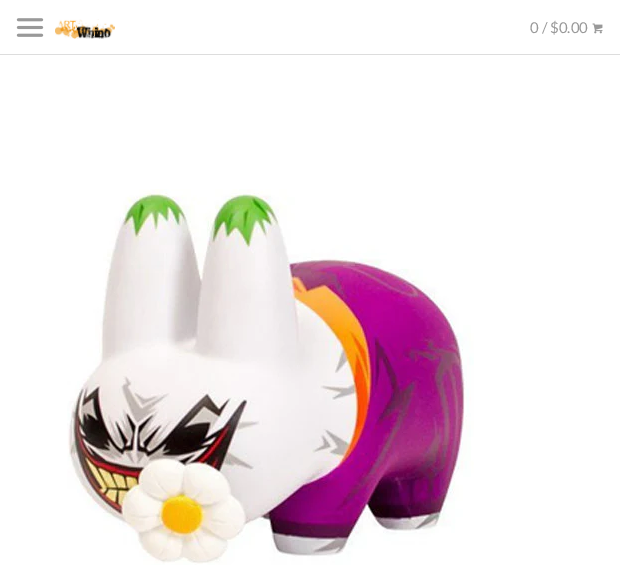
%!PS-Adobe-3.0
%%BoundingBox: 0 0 620 575
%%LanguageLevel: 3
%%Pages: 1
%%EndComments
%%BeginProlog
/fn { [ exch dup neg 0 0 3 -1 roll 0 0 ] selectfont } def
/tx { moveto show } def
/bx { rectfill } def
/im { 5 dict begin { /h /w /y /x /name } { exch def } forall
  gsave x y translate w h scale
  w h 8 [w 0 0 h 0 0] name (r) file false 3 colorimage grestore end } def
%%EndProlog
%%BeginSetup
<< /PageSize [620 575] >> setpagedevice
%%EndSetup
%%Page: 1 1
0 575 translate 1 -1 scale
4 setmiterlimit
1 setgray
0 0 620 575 bx
0.867 setgray
0 54 620 1 bx
(image0.raw) 16 18 28 19 im
(image1.raw) 55 19 60 20 im
/Lato-Regular 15 fn
0.6 setgray
(0 / $0.00) 530 33 tx
(image2.raw) 592 23 11 11 im
(image3.raw) 67 189 407 376 im
showpage
%%EOF
